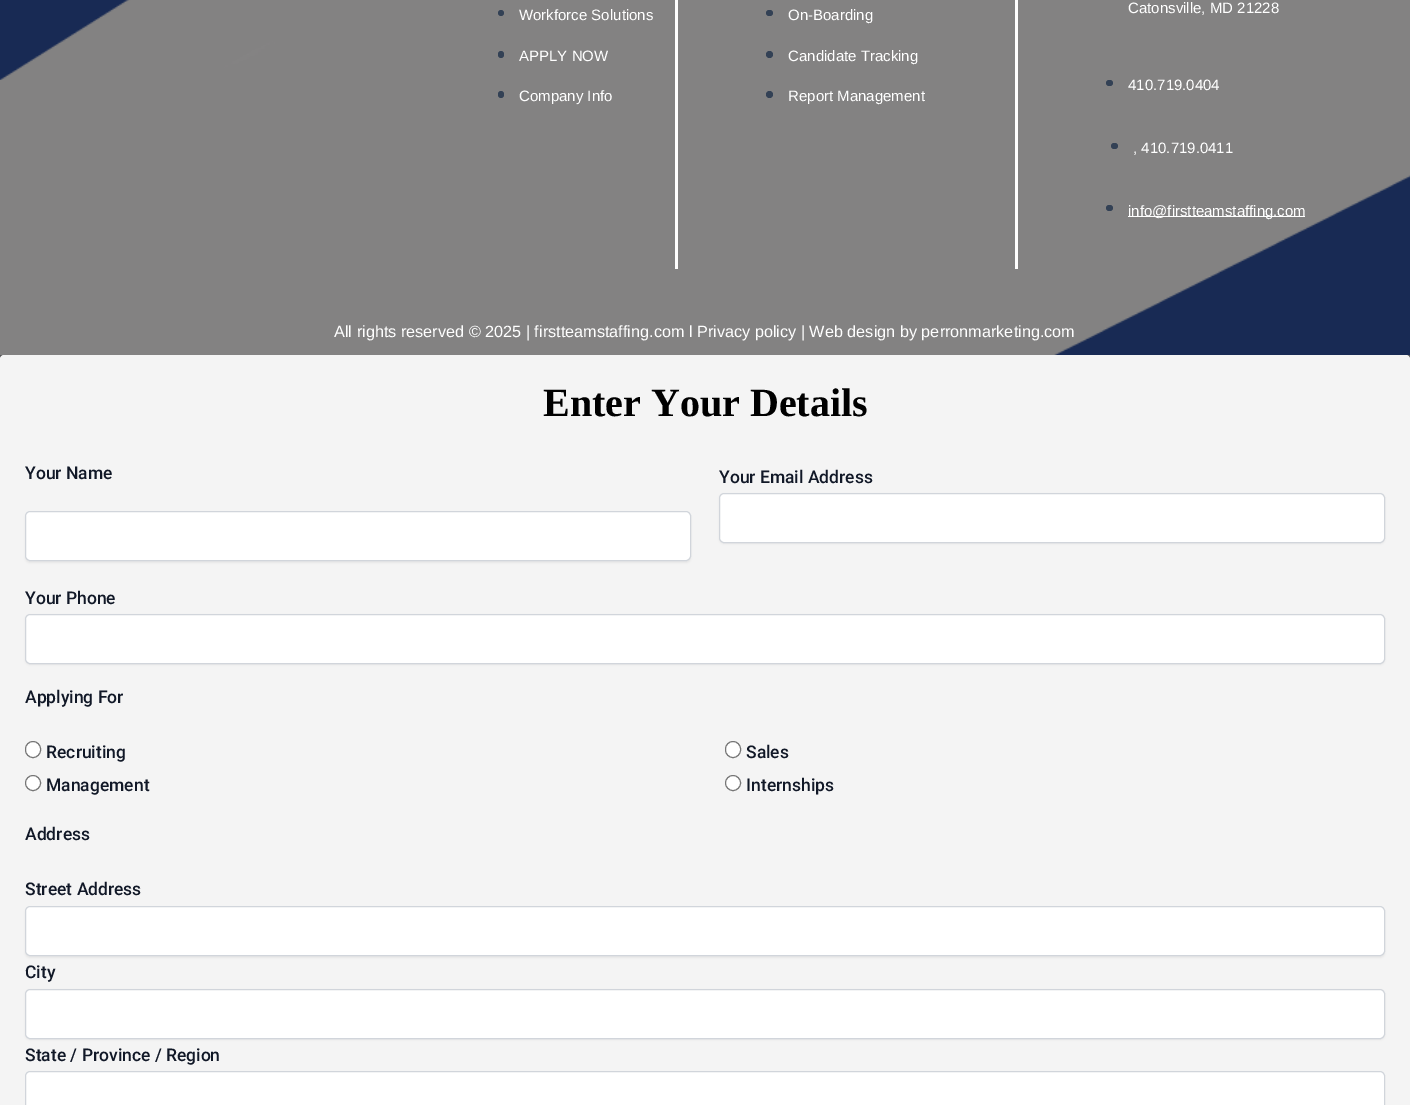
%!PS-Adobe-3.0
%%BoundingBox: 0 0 1410 1105
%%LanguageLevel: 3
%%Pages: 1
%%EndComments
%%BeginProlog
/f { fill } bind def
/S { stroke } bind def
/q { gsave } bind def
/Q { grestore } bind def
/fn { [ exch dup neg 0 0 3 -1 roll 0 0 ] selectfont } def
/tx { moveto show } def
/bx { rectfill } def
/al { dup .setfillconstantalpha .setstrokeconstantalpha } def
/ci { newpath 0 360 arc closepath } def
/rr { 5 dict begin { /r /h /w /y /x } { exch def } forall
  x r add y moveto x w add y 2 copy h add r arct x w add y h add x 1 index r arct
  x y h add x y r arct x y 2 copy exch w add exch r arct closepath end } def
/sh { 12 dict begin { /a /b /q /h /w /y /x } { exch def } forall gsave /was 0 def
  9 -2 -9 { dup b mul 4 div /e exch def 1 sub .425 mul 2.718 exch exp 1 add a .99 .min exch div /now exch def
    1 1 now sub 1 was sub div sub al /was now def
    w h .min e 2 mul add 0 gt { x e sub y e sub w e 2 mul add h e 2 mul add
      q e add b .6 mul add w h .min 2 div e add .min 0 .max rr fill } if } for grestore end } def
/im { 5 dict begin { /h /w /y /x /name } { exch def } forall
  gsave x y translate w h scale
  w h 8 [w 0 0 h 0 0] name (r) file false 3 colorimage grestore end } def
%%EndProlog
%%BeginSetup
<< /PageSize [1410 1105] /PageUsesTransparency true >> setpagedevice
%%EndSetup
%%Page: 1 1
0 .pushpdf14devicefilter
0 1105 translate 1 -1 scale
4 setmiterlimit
0.471 0.478 0.494 setrgbcolor
0 0 1410 1105 bx
0.008 setgray
0 355 1410 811 4 19 1 sh
(image0.raw) 0 0 1410 355 im
1 setgray
675 0 3 269 bx
0.2 0.255 0.333 setrgbcolor
501 13 3 ci f
/LiberationSans-Regular 15 fn
1 setgray
(Workforce Solutions) 519 20 tx
0.2 0.255 0.333 setrgbcolor
498 51 6 7 3 rr f
1 setgray
(APPLY NOW) 519 61 tx
0.2 0.255 0.333 setrgbcolor
498 91 6 7 3 rr f
1 setgray
(Company Info) 519 101 tx
1015 0 3 269 bx
0.2 0.255 0.333 setrgbcolor
766 10 7 6 3 rr f
1 setgray
(On-Boarding) 788 20 tx
0.2 0.255 0.333 setrgbcolor
769.5 54.5 3.5 ci f
1 setgray
(Candidate Tracking) 788 61 tx
0.2 0.255 0.333 setrgbcolor
769.5 94.5 3.5 ci f
1 setgray
(Report Management) 788 101 tx
(Catonsville, MD 21228) 1128 13 tx
0.2 0.255 0.333 setrgbcolor
1106 80 7 6 3 rr f
1 setgray
(410.719.0404) 1128 90 tx
0.2 0.255 0.333 setrgbcolor
1111 143 7 6 3 rr f
1 setgray
(, 410.719.0411) 1133 153 tx
0.2 0.255 0.333 setrgbcolor
1106 205 7 6 3 rr f
1 setgray
1128 216 177 1 bx
(info@firstteamstaffing.com) 1128 216 tx
/LiberationSans-Regular 16.25 fn
(All rights reserved © 2025 | firstteamstaffing.com l Privacy policy | Web design by perronmarketing.com) 334 337 tx
0.957 setgray
0 355 1410 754 4 rr f
/LiberationSerif-Bold 40 fn
0 setgray
(Enter Your Details) 543 416 tx
/Roboto-Medium 17.5 fn
0.067 0.094 0.153 setrgbcolor
(Your Name) 25 479 tx
0 setgray
25 513 666 50 5 1 0.05 sh
1 setgray
25.5 511.5 665 49 4.5 rr q f Q
0.82 0.835 0.859 setrgbcolor
S
0.067 0.094 0.153 setrgbcolor
(Your Email Address) 719 483 tx
0 setgray
719 494 666 50 5 1 0.05 sh
1 setgray
719.5 493.5 665 49 4.5 rr q f Q
0.82 0.835 0.859 setrgbcolor
S
0.067 0.094 0.153 setrgbcolor
(Your Phone) 25 604 tx
0 setgray
25 615 1360 50 5 1 0.05 sh
1 setgray
25.5 614.5 1359 49 4.5 rr q f Q
0.82 0.835 0.859 setrgbcolor
S
0.067 0.094 0.153 setrgbcolor
(Applying For) 25 703 tx
1 setgray
25.5 741.5 15 16 7.5 rr q f Q
0.463 setgray
S
0.067 0.094 0.153 setrgbcolor
(Recruiting) 46 758 tx
1 setgray
725.5 741.5 15 16 7.5 rr q f Q
0.463 setgray
S
0.067 0.094 0.153 setrgbcolor
(Sales) 746 758 tx
1 setgray
33 783 7.5 ci q f Q
0.463 setgray
S
0.067 0.094 0.153 setrgbcolor
(Management) 46 791 tx
1 setgray
733 783 7.5 ci q f Q
0.463 setgray
S
0.067 0.094 0.153 setrgbcolor
(Internships) 746 791 tx
(Address) 25 840 tx
(Street Address) 25 895 tx
0 setgray
25 908 1360 50 5 1 0.05 sh
1 setgray
25.5 906.5 1359 49 4.5 rr q f Q
0.82 0.835 0.859 setrgbcolor
S
0.067 0.094 0.153 setrgbcolor
(City) 25 978 tx
0 setgray
25 990 1360 50 5 1 0.05 sh
1 setgray
25.5 989.5 1359 49 4.5 rr q f Q
0.82 0.835 0.859 setrgbcolor
S
0.067 0.094 0.153 setrgbcolor
(State / Province / Region) 25 1061 tx
1 setgray
25.5 1071.5 1359 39 4.5 rr q f Q
0.82 0.835 0.859 setrgbcolor
S
.poppdf14devicefilter showpage
%%EOF
